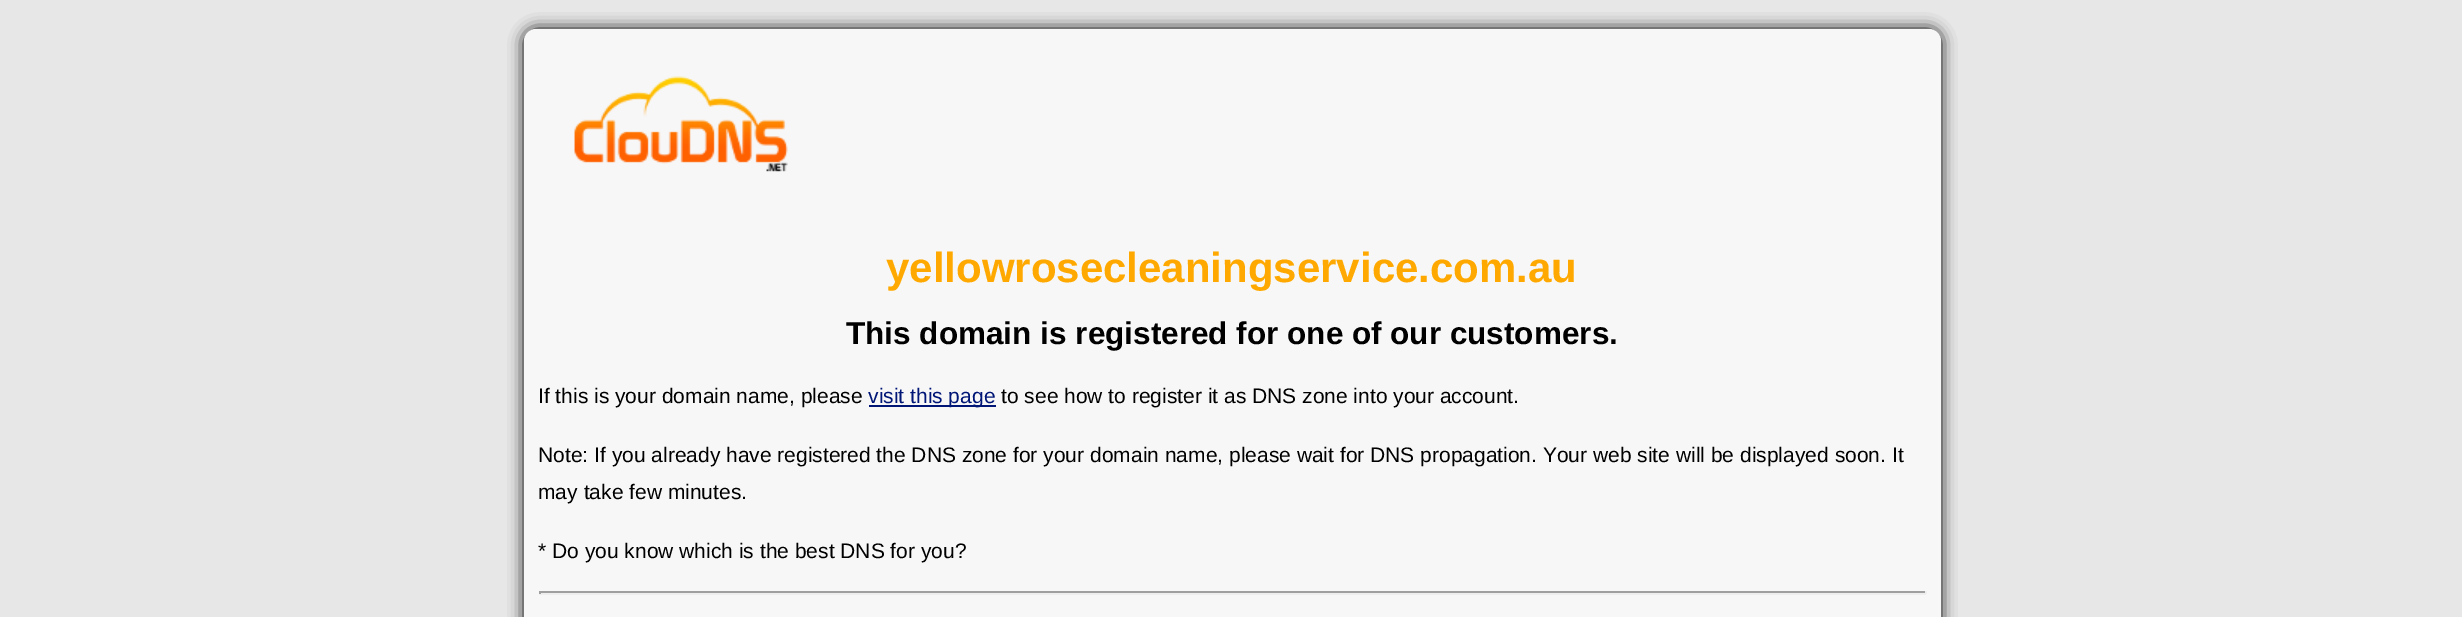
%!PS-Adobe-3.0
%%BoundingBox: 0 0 2462 617
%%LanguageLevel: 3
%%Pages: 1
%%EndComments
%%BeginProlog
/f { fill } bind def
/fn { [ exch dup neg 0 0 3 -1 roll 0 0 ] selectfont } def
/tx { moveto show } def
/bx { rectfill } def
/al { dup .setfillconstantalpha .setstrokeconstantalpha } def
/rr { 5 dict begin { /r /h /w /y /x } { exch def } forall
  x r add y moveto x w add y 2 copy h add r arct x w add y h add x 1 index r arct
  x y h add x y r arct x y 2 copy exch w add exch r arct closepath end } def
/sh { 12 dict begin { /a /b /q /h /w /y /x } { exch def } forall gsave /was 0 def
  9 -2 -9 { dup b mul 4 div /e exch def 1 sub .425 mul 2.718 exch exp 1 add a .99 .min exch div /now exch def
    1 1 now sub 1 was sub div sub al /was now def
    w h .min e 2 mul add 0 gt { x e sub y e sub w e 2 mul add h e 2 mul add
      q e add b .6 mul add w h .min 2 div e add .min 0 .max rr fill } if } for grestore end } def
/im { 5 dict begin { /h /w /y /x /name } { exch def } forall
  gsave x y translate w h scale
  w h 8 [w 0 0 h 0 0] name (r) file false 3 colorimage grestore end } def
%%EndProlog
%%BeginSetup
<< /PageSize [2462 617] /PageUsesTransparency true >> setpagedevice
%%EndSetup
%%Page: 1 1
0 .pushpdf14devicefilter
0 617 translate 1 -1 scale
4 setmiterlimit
0.906 setgray
0 0 2462 617 bx
0 setgray
524 29 1417 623 12 7.5 1 sh
0.969 setgray
524 29 1417 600 12 rr f
(image0.raw) 574 76 214 96 im
/LiberationSans-Bold 42 fn
1 0.663 0 setrgbcolor
(yellowrosecleaningservice.com.au) 886 282 tx
/LiberationSans-Bold 31.5 fn
0 setgray
(This domain is registered for one of our customers.) 846 344 tx
/LiberationSans-Regular 21 fn
(If this is your domain name, please) 538 403 tx
0 0.086 0.467 setrgbcolor
869 405 127 2 bx
(visit this page) 868 403 tx
0 setgray
(to see how to register it as DNS zone into your account.) 1001 403 tx
(Note: If you already have registered the DNS zone for your domain name, please wait for DNS propagation. Your web site will be displayed soon. It) 538 462 tx
(may take few minutes.) 538 499 tx
(* Do you know which is the best DNS for you?) 538 558 tx
0.624 setgray
539 591 1387 2 bx
0.933 setgray
1925 591 2 3 bx
539 593 1387 2 bx
0.624 setgray
539 591 2 3 bx
.poppdf14devicefilter showpage
%%EOF
